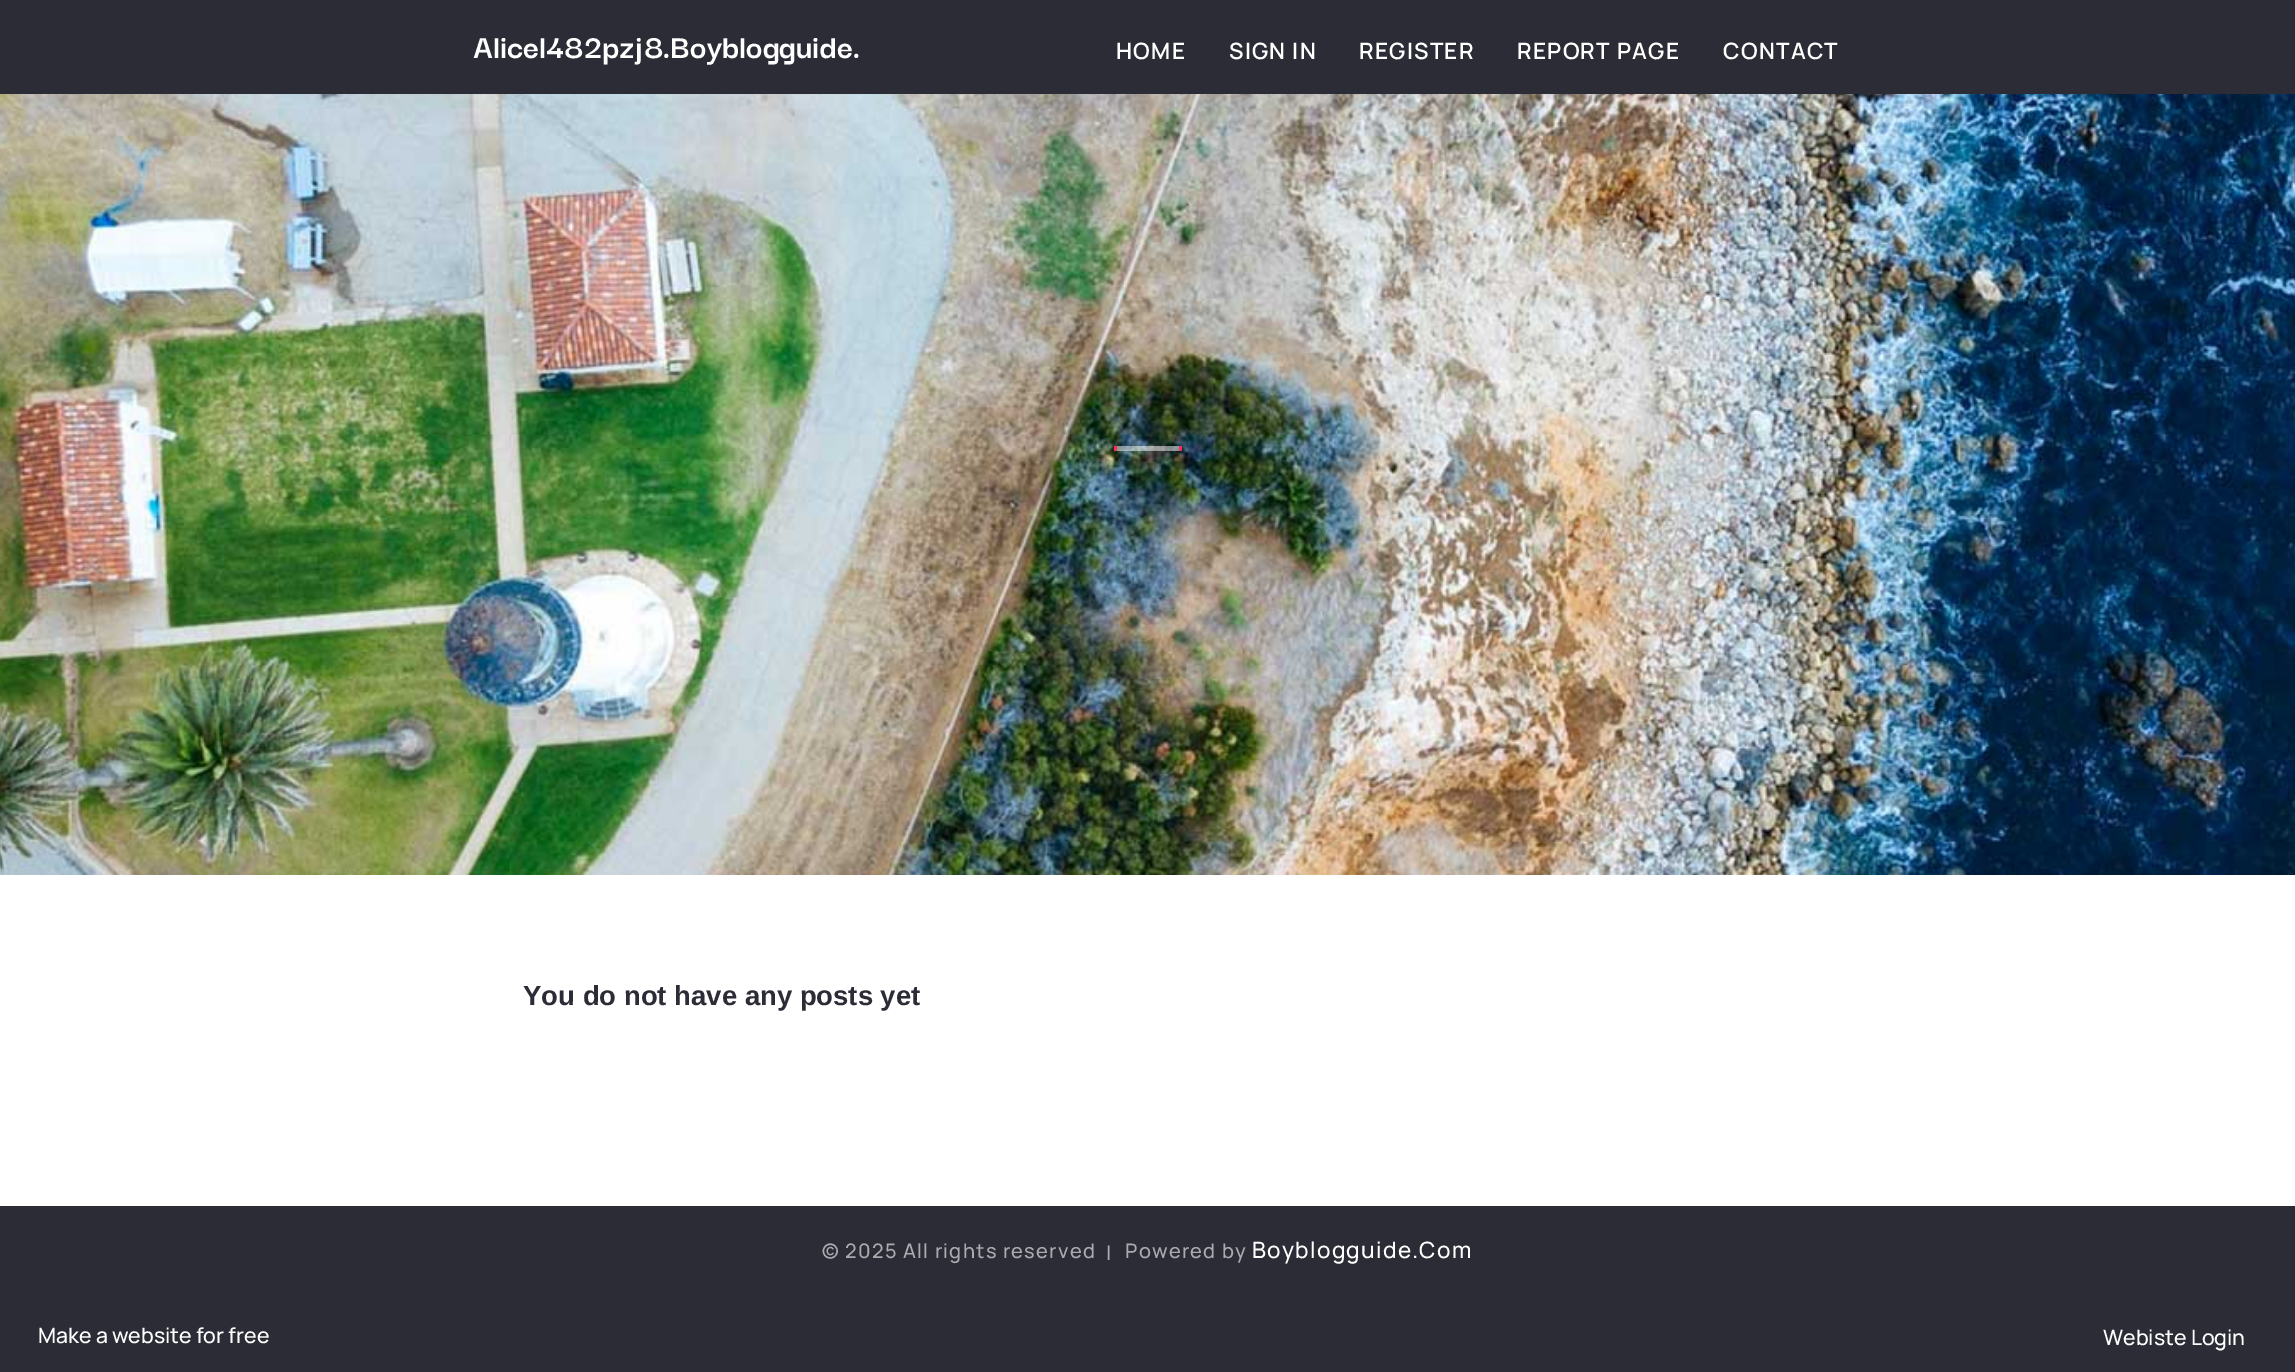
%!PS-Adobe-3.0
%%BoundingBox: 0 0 2295 1372
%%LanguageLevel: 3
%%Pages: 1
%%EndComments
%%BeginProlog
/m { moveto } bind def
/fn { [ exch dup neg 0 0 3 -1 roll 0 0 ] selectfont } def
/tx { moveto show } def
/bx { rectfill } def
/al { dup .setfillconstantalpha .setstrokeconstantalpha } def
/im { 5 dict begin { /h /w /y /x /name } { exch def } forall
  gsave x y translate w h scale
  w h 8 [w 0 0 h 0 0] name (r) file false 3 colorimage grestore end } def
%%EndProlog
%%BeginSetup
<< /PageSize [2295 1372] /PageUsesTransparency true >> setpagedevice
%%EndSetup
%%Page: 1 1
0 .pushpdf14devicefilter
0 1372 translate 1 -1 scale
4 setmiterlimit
1 setgray
0 0 2295 1372 bx
0.169 0.173 0.212 setrgbcolor
0 0 2295 94 bx
/DarkerGrotesque-Bold 35 fn
1 setgray
(Alicel482pzj8.Boyblogguide.) 473 58 tx
/Manrope-SemiBold 22.5 fn
1116 59 m 1.25 0 (HOME) ashow
1229 59 m 1.25 0 (SIGN IN) ashow
1359 59 m 1.25 0 (REGISTER) ashow
1517 59 m 1.25 0 (REPORT PAGE) ashow
1723 59 m 1.25 0 (CONTACT) ashow
(image0.raw) 0 94 2295 781 im
0.5 al
1114 446 67 5 bx
1 al
1 0.169 0.345 setrgbcolor
1179 446 3 5 bx
1114 446 3 5 bx
/LiberationSans-Bold 27.5 fn
0.169 0.173 0.212 setrgbcolor
(You do not have any posts yet) 523 1005 tx
0 1206 2295 166 bx
/Manrope-Medium 20 fn
0.667 0.671 0.686 setrgbcolor
822 1258 m 1.25 0 (© 2025 All rights reserved) ashow
1106 1260 m 1.25 0 (|) ashow
1125 1258 m 1.25 0 (Powered by) ashow
/Manrope-Medium 22.5 fn
1 setgray
1252 1258 m 1.25 0 (Boyblogguide.Com) ashow
/Manrope-Medium 21.25 fn
(Make a website for free) 38 1343 tx
(Webiste Login) 2103 1345 tx
.poppdf14devicefilter showpage
%%EOF
